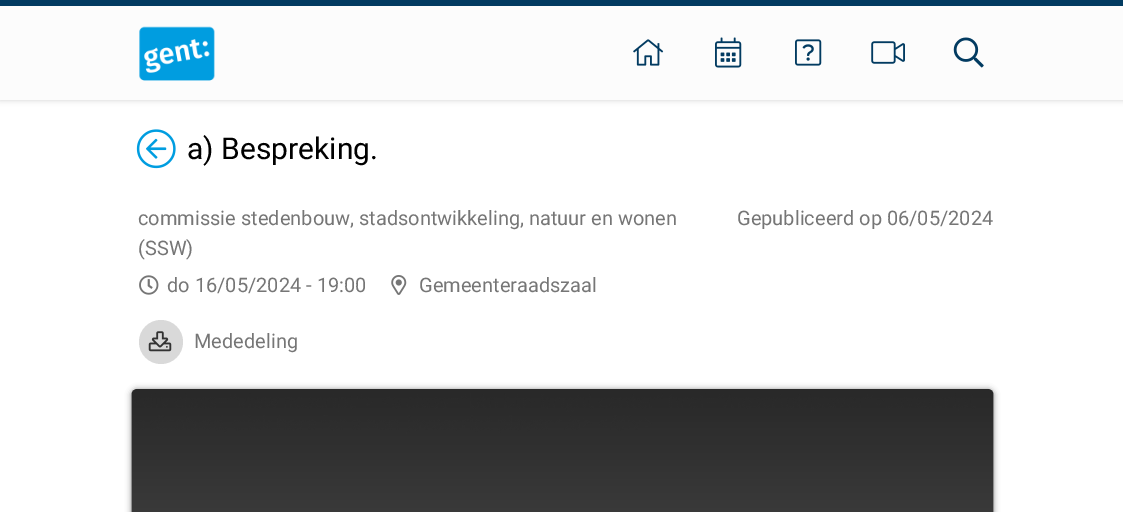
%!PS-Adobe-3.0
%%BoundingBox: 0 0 1123 512
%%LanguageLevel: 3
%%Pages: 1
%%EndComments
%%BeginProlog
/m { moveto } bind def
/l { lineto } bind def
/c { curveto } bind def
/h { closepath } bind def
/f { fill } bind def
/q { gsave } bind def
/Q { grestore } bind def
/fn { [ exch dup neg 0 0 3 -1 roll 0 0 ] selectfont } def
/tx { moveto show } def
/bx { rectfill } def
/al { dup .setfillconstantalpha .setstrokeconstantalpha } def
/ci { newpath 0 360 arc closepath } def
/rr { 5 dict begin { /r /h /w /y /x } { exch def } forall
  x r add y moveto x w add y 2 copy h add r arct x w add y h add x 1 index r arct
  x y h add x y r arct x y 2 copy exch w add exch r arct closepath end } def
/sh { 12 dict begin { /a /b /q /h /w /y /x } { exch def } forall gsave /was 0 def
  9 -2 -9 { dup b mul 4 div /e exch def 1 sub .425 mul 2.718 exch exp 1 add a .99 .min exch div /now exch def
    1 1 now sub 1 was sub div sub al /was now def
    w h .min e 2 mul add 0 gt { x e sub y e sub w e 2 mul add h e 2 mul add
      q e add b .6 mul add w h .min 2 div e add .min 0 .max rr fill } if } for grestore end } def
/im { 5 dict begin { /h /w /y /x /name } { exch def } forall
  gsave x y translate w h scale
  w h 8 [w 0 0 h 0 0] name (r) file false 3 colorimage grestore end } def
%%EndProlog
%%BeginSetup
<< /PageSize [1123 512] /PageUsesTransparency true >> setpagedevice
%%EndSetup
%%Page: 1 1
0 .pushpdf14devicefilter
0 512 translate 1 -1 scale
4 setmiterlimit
1 setgray
0 0 1123 512 bx
0.82 setgray
0 0 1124 100 0 3 1 sh
0.988 setgray
0 6 1123 94 bx
0.008 0.231 0.38 setrgbcolor
0 0 1123 6 bx
(image0.raw) 139 26 76 55 im
(image1.raw) 633 39 31 27 im
(image2.raw) 715 37 27 31 im
(image3.raw) 795 39 27 27 im
(image4.raw) 871 41 34 23 im
(image5.raw) 953 37 31 31 im
(image6.raw) 136 129 40 40 im
/Roboto-Regular 30 fn
0 setgray
(a\) Bespreking.) 187 159 tx
/Roboto-Regular 20 fn
0.463 setgray
(commissie stedenbouw, stadsontwikkeling, natuur en wonen) 138 225 tx
(\(SSW\)) 138 255 tx
(Gepubliceerd op 06/05/2024) 737 225 tx
(image7.raw) 139 275 20 20 im
(do 16/05/2024 - 19:00) 167 292 tx
(image8.raw) 391 275 16 20 im
(Gemeenteraadszaal) 419 292 tx
0.851 setgray
161 342 22 ci f
(image9.raw) 148 331 24 21 im
0.463 setgray
(Mededeling) 194 348 tx
q
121 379 m 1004 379 l 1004 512 l 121 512 l h 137 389 m 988 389 l 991.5 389 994 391.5 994 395 c 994 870 l 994 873.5 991.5 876 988 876 c 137 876 l 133.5 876 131 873.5 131 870 c 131 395 l 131 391.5 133.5 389 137 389 c h eoclip newpath
0.588 setgray
131 389 863 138 6 3 1 sh
Q
(image10.raw) 131 389 863 123 im
.poppdf14devicefilter showpage
%%EOF
